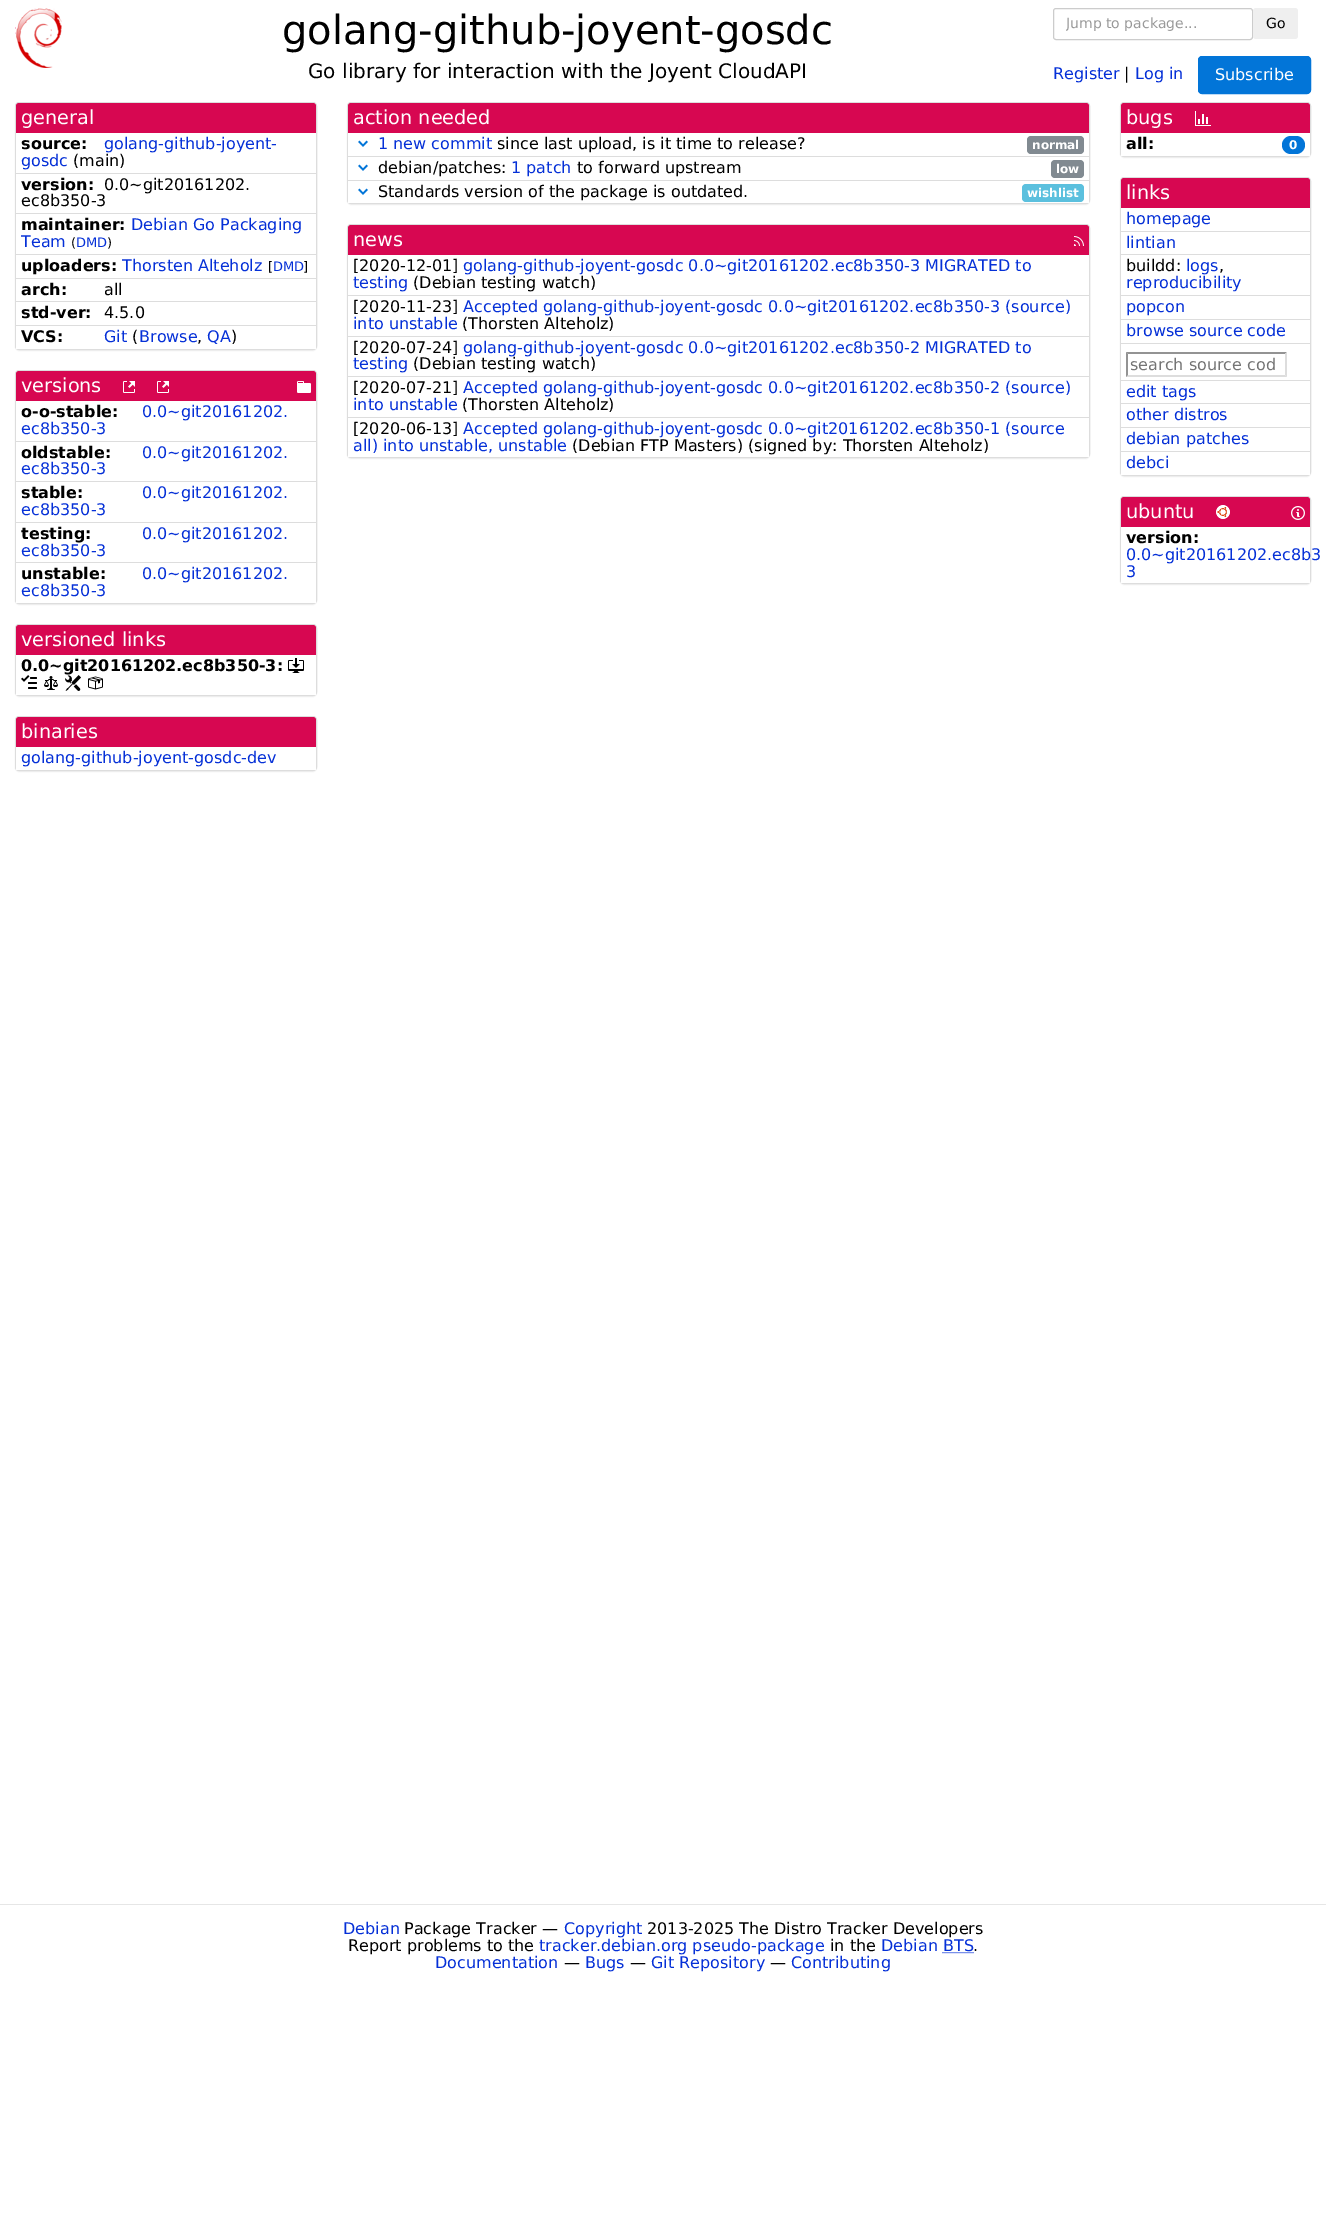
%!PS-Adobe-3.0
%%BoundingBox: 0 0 1326 2233
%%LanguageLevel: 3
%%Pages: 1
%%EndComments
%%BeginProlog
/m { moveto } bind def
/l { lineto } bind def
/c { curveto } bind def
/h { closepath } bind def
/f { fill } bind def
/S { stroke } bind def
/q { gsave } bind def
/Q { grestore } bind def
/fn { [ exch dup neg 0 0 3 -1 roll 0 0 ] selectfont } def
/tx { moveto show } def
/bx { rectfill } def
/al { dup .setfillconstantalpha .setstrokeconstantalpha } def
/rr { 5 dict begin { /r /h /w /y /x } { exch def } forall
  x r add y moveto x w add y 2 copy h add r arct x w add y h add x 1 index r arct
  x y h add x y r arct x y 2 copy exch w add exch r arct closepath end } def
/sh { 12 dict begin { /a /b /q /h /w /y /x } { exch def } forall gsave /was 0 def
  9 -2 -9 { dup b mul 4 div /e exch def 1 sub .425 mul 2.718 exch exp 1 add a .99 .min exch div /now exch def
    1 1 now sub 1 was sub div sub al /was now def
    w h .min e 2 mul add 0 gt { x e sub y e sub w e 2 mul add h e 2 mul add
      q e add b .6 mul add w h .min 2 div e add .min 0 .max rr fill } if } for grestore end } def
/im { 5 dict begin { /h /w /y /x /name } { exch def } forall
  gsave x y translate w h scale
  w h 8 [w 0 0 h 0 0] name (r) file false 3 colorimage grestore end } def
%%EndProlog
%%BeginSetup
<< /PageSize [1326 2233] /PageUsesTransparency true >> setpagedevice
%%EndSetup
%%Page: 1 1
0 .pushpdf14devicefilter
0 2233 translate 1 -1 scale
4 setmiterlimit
1 setgray
0 0 1326 2233 bx
(image0.raw) 15 8 47 60 im
/DejaVuSans-Regular 40 fn
0 setgray
(golang-github-joyent-gosdc) 282 44 tx
/DejaVuSans-Regular 20 fn
(Go library for interaction with the Joyent CloudAPI) 308 78 tx
0.8 setgray
1053.5 8.5 199 31 2.5 rr S
q
1066 15 170 16 rectclip
/DejaVuSans-Regular 14 fn
0.6 setgray
(Jump to package...) 1066 28 tx
Q
0.937 setgray
1253 8 45 31 3 rr f
/DejaVuSans-Regular 14 fn
0 setgray
(Go) 1266 28 tx
/DejaVuSans-Regular 16 fn
0.02 0.188 0.843 setrgbcolor
(Register) 1053 79 tx
0 setgray
(|) 1124 79 tx
0.02 0.188 0.843 setrgbcolor
(Log in) 1135 79 tx
0.008 0.459 0.847 setrgbcolor
1198.5 56.5 112 37 3.5 rr q f Q
S
1 setgray
(Subscribe) 1215 80 tx
0 setgray
15 103 302 248 4 0.5 0.05 sh
0.867 setgray
15.5 102.5 301 247 3.5 rr S
0.843 0.027 0.318 setrgbcolor
19 103 m 313 103 l 314.5 103 316 104.5 316 106 c 316 134 l 16 134 l 16 106 l 16 104.5 17.5 103 19 103 c h f
/DejaVuSans-Regular 19.25 fn
1 setgray
(general) 21 124 tx
16 133 300 216 bx
0.867 setgray
16 173 300 1 bx
/DejaVuSans-Bold 16 fn
0 setgray
(source:) 21 149 tx
/DejaVuSans-Regular 16 fn
0.02 0.188 0.843 setrgbcolor
(golang-github-joyent-) 104 149 tx
(gosdc) 21 166 tx
0 setgray
(\(main\)) 73 166 tx
0.867 setgray
16 213 300 1 bx
/DejaVuSans-Bold 16 fn
0 setgray
(version:) 21 190 tx
/DejaVuSans-Regular 16 fn
(0.0~git20161202.) 104 190 tx
(ec8b350-3) 21 206 tx
0.867 setgray
16 254 300 1 bx
/DejaVuSans-Bold 16 fn
0 setgray
(maintainer:) 21 230 tx
/DejaVuSans-Regular 16 fn
0.02 0.188 0.843 setrgbcolor
(Debian Go Packaging) 131 230 tx
(Team) 21 247 tx
/DejaVuSans-Regular 13 fn
0 setgray
(\() 71 247 tx
0.02 0.188 0.843 setrgbcolor
(DMD) 76 247 tx
0 setgray
(\)) 107 247 tx
0.867 setgray
16 278 300 1 bx
/DejaVuSans-Bold 16 fn
0 setgray
(uploaders:) 21 271 tx
/DejaVuSans-Regular 16 fn
0.02 0.188 0.843 setrgbcolor
(Thorsten Alteholz) 122 271 tx
/DejaVuSans-Regular 13 fn
0 setgray
([) 268 271 tx
0.02 0.188 0.843 setrgbcolor
(DMD) 273 271 tx
0 setgray
(]) 303 271 tx
0.867 setgray
16 301 300 1 bx
/DejaVuSans-Bold 16 fn
0 setgray
(arch:) 21 295 tx
/DejaVuSans-Regular 16 fn
(all) 104 295 tx
/DejaVuSans-Bold 16 fn
(std-ver:) 21 318 tx
/DejaVuSans-Regular 16 fn
(4.5.0) 104 318 tx
0.867 setgray
16 325 300 1 bx
/DejaVuSans-Bold 16 fn
0 setgray
(VCS:) 21 342 tx
/DejaVuSans-Regular 16 fn
0.02 0.188 0.843 setrgbcolor
(Git) 104 342 tx
0 setgray
(\() 132 342 tx
0.02 0.188 0.843 setrgbcolor
(Browse) 139 342 tx
0 setgray
(,) 197 342 tx
0.02 0.188 0.843 setrgbcolor
(QA) 207 342 tx
0 setgray
(\)) 231 342 tx
15 371 302 234 4 0.5 0.05 sh
0.867 setgray
15.5 370.5 301 233 3.5 rr S
0.843 0.027 0.318 setrgbcolor
19 371 m 313 371 l 314.5 371 316 372.5 316 374 c 316 402 l 16 402 l 16 374 l 16 372.5 17.5 371 19 371 c h f
/DejaVuSans-Regular 19.25 fn
1 setgray
(versions) 21 392 tx
(image1.raw) 123 381 12 12 im
(image1.raw) 157 381 12 12 im
(image2.raw) 297 381 14 12 im
16 401 300 202 bx
0.867 setgray
16 441 300 1 bx
/DejaVuSans-Bold 16 fn
0 setgray
(o-o-stable:) 21 417 tx
/DejaVuSans-Regular 16 fn
0.02 0.188 0.843 setrgbcolor
(0.0~git20161202.) 142 417 tx
(ec8b350-3) 21 434 tx
0.867 setgray
16 481 300 1 bx
/DejaVuSans-Bold 16 fn
0 setgray
(oldstable:) 21 458 tx
/DejaVuSans-Regular 16 fn
0.02 0.188 0.843 setrgbcolor
(0.0~git20161202.) 142 458 tx
(ec8b350-3) 21 474 tx
0.867 setgray
16 522 300 1 bx
/DejaVuSans-Bold 16 fn
0 setgray
(stable:) 21 498 tx
/DejaVuSans-Regular 16 fn
0.02 0.188 0.843 setrgbcolor
(0.0~git20161202.) 142 498 tx
(ec8b350-3) 21 515 tx
/DejaVuSans-Bold 16 fn
0 setgray
(testing:) 21 539 tx
/DejaVuSans-Regular 16 fn
0.02 0.188 0.843 setrgbcolor
(0.0~git20161202.) 142 539 tx
(ec8b350-3) 21 556 tx
0.867 setgray
16 562 300 1 bx
/DejaVuSans-Bold 16 fn
0 setgray
(unstable:) 21 579 tx
/DejaVuSans-Regular 16 fn
0.02 0.188 0.843 setrgbcolor
(0.0~git20161202.) 142 579 tx
(ec8b350-3) 21 596 tx
0 setgray
15 625 302 72 4 0.5 0.05 sh
0.867 setgray
15.5 624.5 301 71 3.5 rr S
0.843 0.027 0.318 setrgbcolor
19 625 m 313 625 l 314.5 625 316 626.5 316 628 c 316 656 l 16 656 l 16 628 l 16 626.5 17.5 625 19 625 c h f
/DejaVuSans-Regular 19.25 fn
1 setgray
(versioned links) 21 646 tx
16 655 300 40 bx
/DejaVuSans-Bold 16 fn
0 setgray
(0.0~git20161202.ec8b350-3:) 21 671 tx
(image3.raw) 288 658 16 15 im
(image4.raw) 21 675 16 14 im
(image5.raw) 44 676 14 14 im
(image6.raw) 65 675 16 16 im
(image7.raw) 88 676 15 14 im
15 717 302 55 4 0.5 0.05 sh
0.867 setgray
15.5 716.5 301 54 3.5 rr S
0.843 0.027 0.318 setrgbcolor
19 717 m 313 717 l 314.5 717 316 718.5 316 720 c 316 748 l 16 748 l 16 720 l 16 718.5 17.5 717 19 717 c h f
/DejaVuSans-Regular 19.25 fn
1 setgray
(binaries) 21 738 tx
16 747 300 23 bx
/DejaVuSans-Regular 16 fn
0.02 0.188 0.843 setrgbcolor
(golang-github-joyent-gosdc-dev) 21 763 tx
0 setgray
347 103 743 102 4 0.5 0.05 sh
0.867 setgray
347.5 102.5 742 101 3.5 rr S
0.843 0.027 0.318 setrgbcolor
351 103 m 1086 103 l 1087.5 103 1089 104.5 1089 106 c 1089 134 l 348 134 l 348 106 l 348 104.5 349.5 103 351 103 c h f
/DejaVuSans-Regular 19.25 fn
1 setgray
(action needed) 353 124 tx
348 133 741 70 bx
0.867 setgray
348 156 741 1 bx
(image8.raw) 358 140 10 7 im
/DejaVuSans-Regular 16 fn
0.02 0.188 0.843 setrgbcolor
(1 new commit) 378 149 tx
0 setgray
(since last upload, is it time to release?) 497 149 tx
0.506 0.541 0.569 setrgbcolor
1027 136 57 18 4 rr f
/DejaVuSans-Bold 12 fn
1 setgray
(normal) 1032 149 tx
(image8.raw) 358 164 10 7 im
/DejaVuSans-Regular 16 fn
0 setgray
(debian/patches:) 378 173 tx
0.02 0.188 0.843 setrgbcolor
(1 patch) 511 173 tx
0 setgray
(to forward upstream) 577 173 tx
0.506 0.541 0.569 setrgbcolor
1051 160 33 18 4 rr f
/DejaVuSans-Bold 12 fn
1 setgray
(low) 1056 173 tx
0.867 setgray
348 180 741 1 bx
(image8.raw) 358 188 10 7 im
/DejaVuSans-Regular 16 fn
0 setgray
(Standards version of the package is outdated.) 378 197 tx
0.357 0.753 0.871 setrgbcolor
1022 184 62 18 4 rr f
/DejaVuSans-Bold 12 fn
1 setgray
(wishlist) 1027 197 tx
0 setgray
347 225 743 234 4 0.5 0.05 sh
0.867 setgray
347.5 224.5 742 233 3.5 rr S
0.843 0.027 0.318 setrgbcolor
351 225 m 1086 225 l 1087.5 225 1089 226.5 1089 228 c 1089 256 l 348 256 l 348 228 l 348 226.5 349.5 225 351 225 c h f
/DejaVuSans-Regular 19.25 fn
1 setgray
(news) 353 246 tx
(image9.raw) 1074 236 10 10 im
348 255 741 202 bx
0.867 setgray
348 295 741 1 bx
/DejaVuSans-Regular 16 fn
0 setgray
([2020-12-01]) 353 271 tx
0.02 0.188 0.843 setrgbcolor
(golang-github-joyent-gosdc 0.0~git20161202.ec8b350-3 MIGRATED to) 463 271 tx
(testing) 353 288 tx
0 setgray
(\(Debian testing watch\)) 413 288 tx
0.867 setgray
348 336 741 1 bx
0 setgray
([2020-11-23]) 353 312 tx
0.02 0.188 0.843 setrgbcolor
(Accepted golang-github-joyent-gosdc 0.0~git20161202.ec8b350-3 \(source\)) 463 312 tx
(into unstable) 353 329 tx
0 setgray
(\(Thorsten Alteholz\)) 462 329 tx
0.867 setgray
348 376 741 1 bx
0 setgray
([2020-07-24]) 353 353 tx
0.02 0.188 0.843 setrgbcolor
(golang-github-joyent-gosdc 0.0~git20161202.ec8b350-2 MIGRATED to) 463 353 tx
(testing) 353 369 tx
0 setgray
(\(Debian testing watch\)) 413 369 tx
([2020-07-21]) 353 393 tx
0.02 0.188 0.843 setrgbcolor
(Accepted golang-github-joyent-gosdc 0.0~git20161202.ec8b350-2 \(source\)) 463 393 tx
(into unstable) 353 410 tx
0 setgray
(\(Thorsten Alteholz\)) 462 410 tx
0.867 setgray
348 417 741 1 bx
0 setgray
([2020-06-13]) 353 434 tx
0.02 0.188 0.843 setrgbcolor
(Accepted golang-github-joyent-gosdc 0.0~git20161202.ec8b350-1 \(source) 463 434 tx
(all\) into unstable, unstable) 353 451 tx
0 setgray
(\(Debian FTP Masters\) \(signed by: Thorsten Alteholz\)) 572 451 tx
1120 103 191 55 4 0.5 0.05 sh
0.867 setgray
1120.5 102.5 190 54 3.5 rr S
0.843 0.027 0.318 setrgbcolor
1124 103 m 1307 103 l 1308.5 103 1310 104.5 1310 106 c 1310 134 l 1121 134 l 1121 106 l 1121 104.5 1122.5 103 1124 103 c h f
/DejaVuSans-Regular 19.25 fn
1 setgray
(bugs) 1126 124 tx
(image10.raw) 1195 111 16 15 im
1121 133 189 23 bx
/DejaVuSans-Bold 16 fn
0 setgray
(all:) 1126 149 tx
0.008 0.459 0.847 setrgbcolor
1282 136 23 18 9 rr f
/DejaVuSans-Bold 12 fn
1 setgray
(0) 1289 149 tx
0 setgray
1120 178 191 299 4 0.5 0.05 sh
0.867 setgray
1120.5 177.5 190 298 3.5 rr S
0.843 0.027 0.318 setrgbcolor
1124 178 m 1307 178 l 1308.5 178 1310 179.5 1310 181 c 1310 209 l 1121 209 l 1121 181 l 1121 179.5 1122.5 178 1124 178 c h f
/DejaVuSans-Regular 19.25 fn
1 setgray
(links) 1126 199 tx
1121 208 189 267 bx
0.867 setgray
1121 231 189 1 bx
/DejaVuSans-Regular 16 fn
0.02 0.188 0.843 setrgbcolor
(homepage) 1126 224 tx
0.867 setgray
1121 254 189 1 bx
0.02 0.188 0.843 setrgbcolor
(lintian) 1126 248 tx
0.867 setgray
1121 295 189 1 bx
0 setgray
(buildd:) 1126 271 tx
0.02 0.188 0.843 setrgbcolor
(logs) 1186 271 tx
0 setgray
(,) 1219 271 tx
0.02 0.188 0.843 setrgbcolor
(reproducibility) 1126 288 tx
0.867 setgray
1121 319 189 1 bx
0.02 0.188 0.843 setrgbcolor
(popcon) 1126 312 tx
0.867 setgray
1121 343 189 1 bx
0.02 0.188 0.843 setrgbcolor
(browse source code) 1126 336 tx
0.867 setgray
1121 380 189 1 bx
0.576 setgray
1126 352 m 1287 352 l 1285 354 l 1128 354 l h f
0.867 setgray
1287 352 m 1287 377 l 1285 375 l 1285 354 l h f
1287 377 m 1126 377 l 1128 375 l 1285 375 l h f
0.576 setgray
1126 377 m 1126 352 l 1128 354 l 1128 375 l h f
0.459 setgray
(search source cod) 1130 370 tx
0.867 setgray
1121 403 189 1 bx
0.02 0.188 0.843 setrgbcolor
(edit tags) 1126 397 tx
0.867 setgray
1121 427 189 1 bx
0.02 0.188 0.843 setrgbcolor
(other distros) 1126 420 tx
(debian patches) 1126 444 tx
0.867 setgray
1121 451 189 1 bx
0.02 0.188 0.843 setrgbcolor
(debci) 1126 468 tx
0 setgray
1120 497 191 88 4 0.5 0.05 sh
0.867 setgray
1120.5 496.5 190 87 3.5 rr S
0.843 0.027 0.318 setrgbcolor
1124 497 m 1307 497 l 1308.5 497 1310 498.5 1310 500 c 1310 528 l 1121 528 l 1121 500 l 1121 498.5 1122.5 497 1124 497 c h f
/DejaVuSans-Regular 19.25 fn
1 setgray
(ubuntu) 1126 518 tx
(image11.raw) 1216 505 14 14 im
(image12.raw) 1291 506 14 14 im
1121 527 189 56 bx
/DejaVuSans-Bold 16 fn
0 setgray
(version:) 1126 543 tx
/DejaVuSans-Regular 16 fn
0.02 0.188 0.843 setrgbcolor
(0.0~git20161202.ec8b3) 1126 560 tx
(3) 1126 577 tx
0.902 setgray
0 1904 1326 1 bx
0.02 0.188 0.843 setrgbcolor
(Debian) 343 1934 tx
0 setgray
(Package Tracker —) 404 1934 tx
0.02 0.188 0.843 setrgbcolor
(Copyright) 564 1934 tx
0 setgray
(2013-2025 The Distro Tracker Developers) 647 1934 tx
(Report problems to the) 348 1951 tx
0.02 0.188 0.843 setrgbcolor
(tracker.debian.org pseudo-package) 539 1951 tx
0 setgray
(in the) 830 1951 tx
0.02 0.188 0.843 setrgbcolor
(Debian BTS) 881 1951 tx
[1 1] 0 setdash
942.5 1952.5 m 973.5 1952.5 l S
0 setgray
(.) 973 1951 tx
0.02 0.188 0.843 setrgbcolor
(Documentation) 435 1968 tx
0 setgray
(—) 564 1968 tx
0.02 0.188 0.843 setrgbcolor
(Bugs) 585 1968 tx
0 setgray
(—) 630 1968 tx
0.02 0.188 0.843 setrgbcolor
(Git Repository) 651 1968 tx
0 setgray
(—) 770 1968 tx
0.02 0.188 0.843 setrgbcolor
(Contributing) 791 1968 tx
.poppdf14devicefilter showpage
%%EOF
